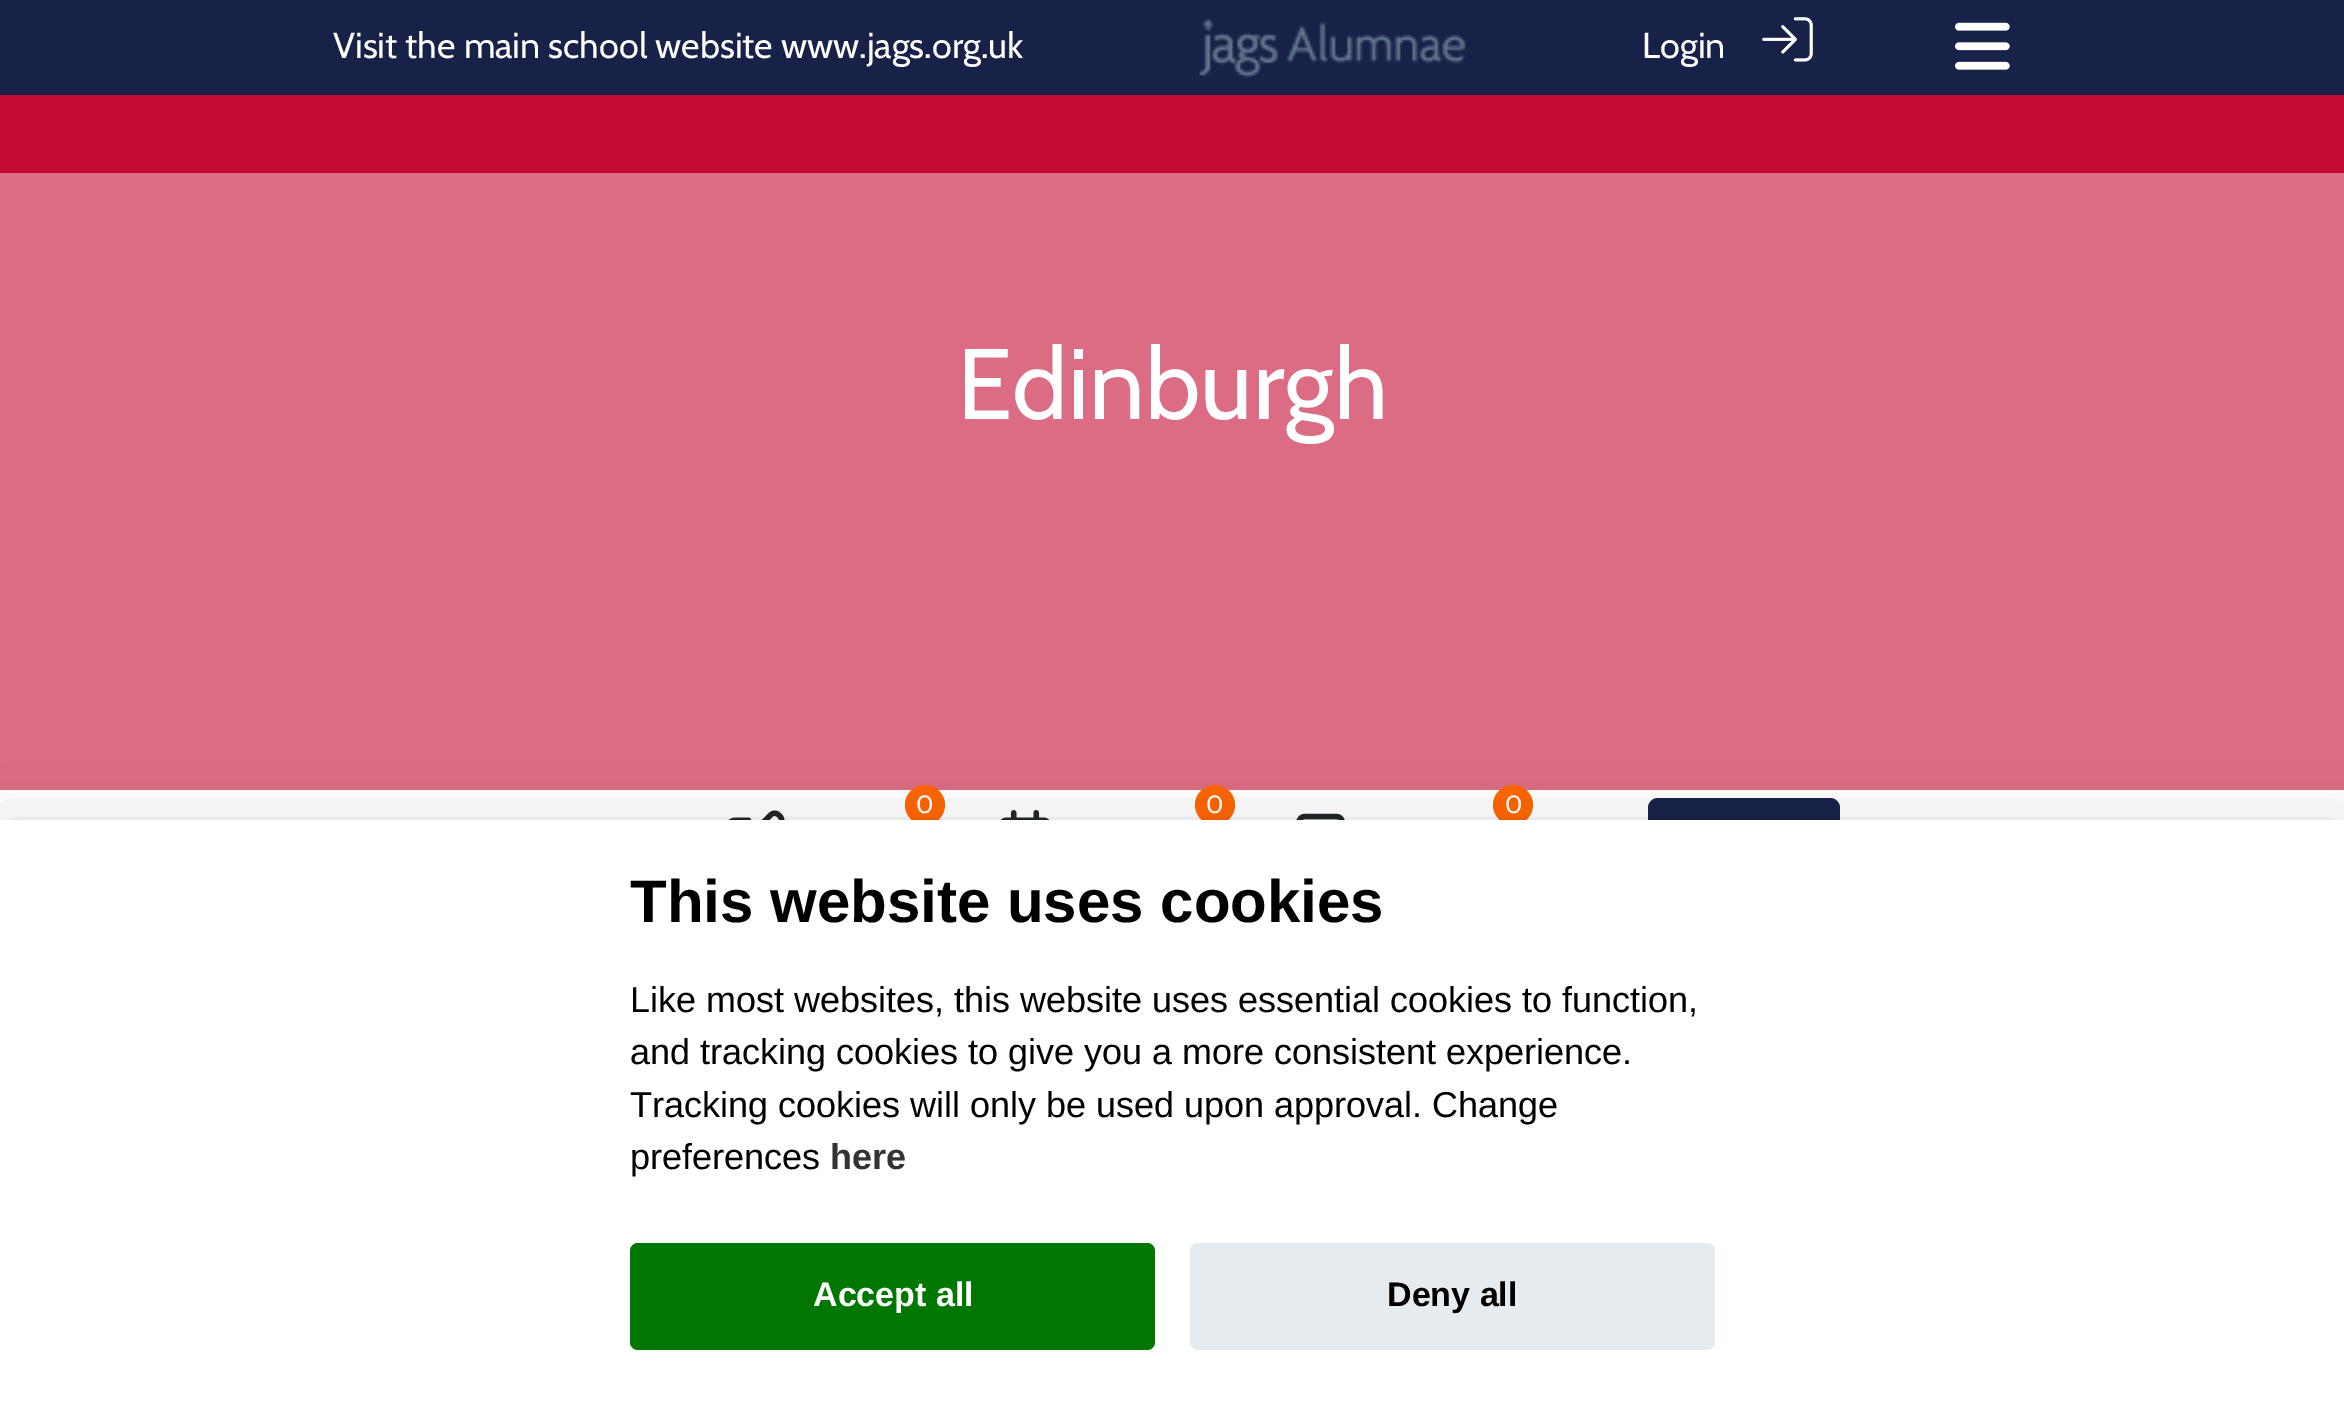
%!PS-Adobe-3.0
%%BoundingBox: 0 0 2344 1420
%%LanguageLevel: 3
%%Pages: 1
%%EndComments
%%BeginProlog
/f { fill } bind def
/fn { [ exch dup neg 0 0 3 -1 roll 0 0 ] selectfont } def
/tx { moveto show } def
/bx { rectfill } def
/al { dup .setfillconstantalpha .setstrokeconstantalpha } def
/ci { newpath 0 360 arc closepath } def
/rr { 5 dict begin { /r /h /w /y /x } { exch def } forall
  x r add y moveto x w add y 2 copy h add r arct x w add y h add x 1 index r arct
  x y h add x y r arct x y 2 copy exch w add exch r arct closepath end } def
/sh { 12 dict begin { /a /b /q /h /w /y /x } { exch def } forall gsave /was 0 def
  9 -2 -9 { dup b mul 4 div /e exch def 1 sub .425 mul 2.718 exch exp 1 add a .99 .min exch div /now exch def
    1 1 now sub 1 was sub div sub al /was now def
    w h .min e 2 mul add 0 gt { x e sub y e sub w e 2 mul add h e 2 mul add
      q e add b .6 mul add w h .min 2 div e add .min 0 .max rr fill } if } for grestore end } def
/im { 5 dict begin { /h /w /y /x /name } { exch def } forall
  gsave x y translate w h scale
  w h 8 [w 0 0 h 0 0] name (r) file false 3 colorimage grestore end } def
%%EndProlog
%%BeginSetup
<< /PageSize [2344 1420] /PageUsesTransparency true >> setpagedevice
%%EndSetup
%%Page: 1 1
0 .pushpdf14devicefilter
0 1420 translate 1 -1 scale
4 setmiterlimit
0.859 0.424 0.518 setrgbcolor
0 0 2344 1420 bx
0.094 0.133 0.286 setrgbcolor
0 0 2344 95 bx
/Cabin-Regular 36 fn
1 setgray
(Visit the main school website www.jags.org.uk) 333 58 tx
(image0.raw) 1199 17 267 61 im
(Login) 1642 58 tx
(image1.raw) 1762 17 51 45 im
(image2.raw) 1955 22 55 48 im
0.765 0.039 0.196 setrgbcolor
0 95 2344 78 bx
/Cabin-Regular 100 fn
1 setgray
(Edinburgh) 957 419 tx
0 790 2344 30 bx
1 0.4 0 setrgbcolor
925 805 20 ci f
/Cabin-Regular 25 fn
1 setgray
(0) 916 813 tx
(image3.raw) 728 810 57 10 im
1 0.4 0 setrgbcolor
1215 805 20 ci f
1 setgray
(0) 1206 813 tx
(image4.raw) 1000 810 50 10 im
1 0.4 0 setrgbcolor
1513 805 20 ci f
1 setgray
(0) 1505 813 tx
(image5.raw) 1296 813 49 7 im
0.094 0.133 0.286 setrgbcolor
1648 798 192 82 10 rr f
0.008 0.008 0.012 setrgbcolor
0 845 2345 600 0 37.5 0.28 sh
1 setgray
0 820 2344 600 bx
/LiberationSans-Bold 60 fn
0 setgray
(This website uses cookies) 630 922 tx
/LiberationSans-Regular 36 fn
(Like most websites, this website uses essential cookies to function,) 630 1012 tx
(and tracking cookies to give you a more consistent experience.) 630 1064 tx
(Tracking cookies will only be used upon approval. Change) 630 1117 tx
(preferences) 630 1169 tx
/LiberationSans-Bold 36 fn
0.2 setgray
(here) 830 1169 tx
0 0.467 0 setrgbcolor
630 1243 525 107 8 rr f
/LiberationSans-Bold 34 fn
1 setgray
(Accept all) 813 1306 tx
0.898 0.922 0.937 setrgbcolor
1190 1243 525 107 8 rr f
0 setgray
(Deny all) 1387 1306 tx
.poppdf14devicefilter showpage
%%EOF
